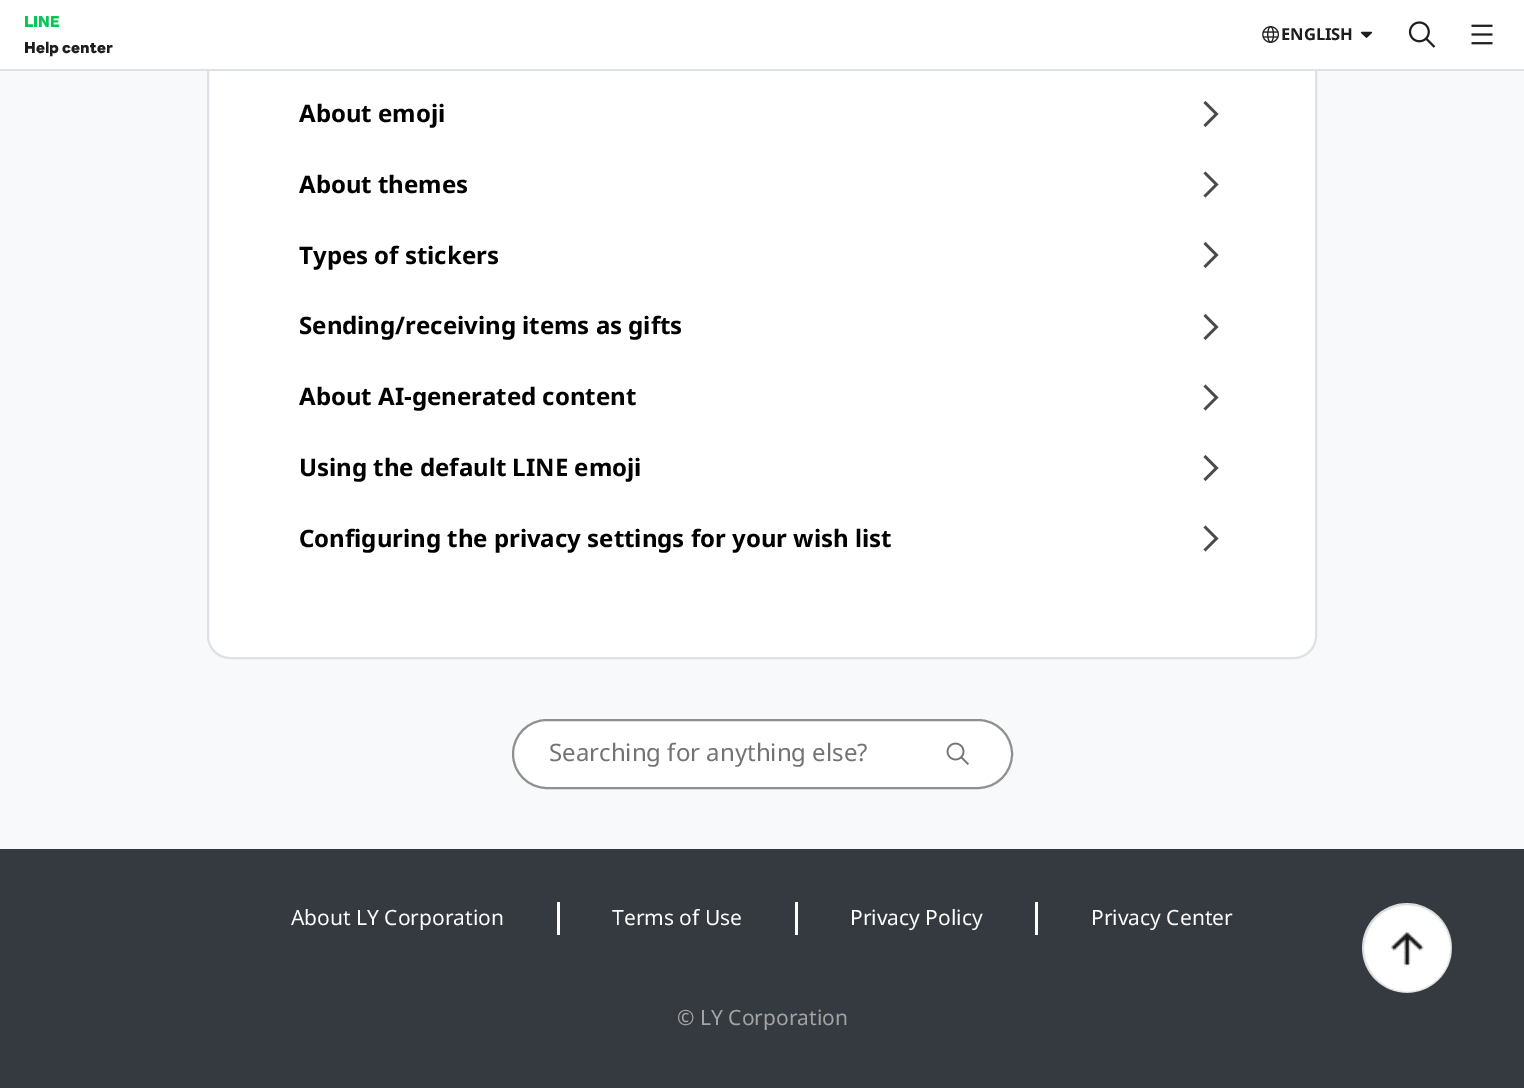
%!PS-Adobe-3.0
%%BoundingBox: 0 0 1524 1088
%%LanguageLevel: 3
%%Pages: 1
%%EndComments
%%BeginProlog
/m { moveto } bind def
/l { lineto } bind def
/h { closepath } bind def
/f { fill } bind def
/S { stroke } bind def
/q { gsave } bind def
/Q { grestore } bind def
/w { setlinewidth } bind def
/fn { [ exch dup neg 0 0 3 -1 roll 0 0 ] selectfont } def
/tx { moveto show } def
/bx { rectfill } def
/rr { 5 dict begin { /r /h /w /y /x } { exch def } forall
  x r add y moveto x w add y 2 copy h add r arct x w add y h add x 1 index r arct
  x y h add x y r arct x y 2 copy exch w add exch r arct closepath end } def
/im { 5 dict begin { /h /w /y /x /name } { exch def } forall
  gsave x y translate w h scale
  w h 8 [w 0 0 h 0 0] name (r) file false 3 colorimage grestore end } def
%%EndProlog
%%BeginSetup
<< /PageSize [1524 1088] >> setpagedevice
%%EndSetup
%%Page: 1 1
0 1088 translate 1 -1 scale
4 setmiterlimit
0.973 0.976 0.98 setrgbcolor
0 0 1524 1088 bx
1 setgray
208 -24 1108 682 22 rr q f Q
0.871 0.886 0.902 setrgbcolor
2 w
S
1 setgray
0 0 1524 69 bx
0.871 0.886 0.902 setrgbcolor
0 69 1524 2 bx
/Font-ExtraBold 15 fn
0.024 0.78 0.333 setrgbcolor
(LINE) 24 27 tx
0.118 setgray
(Help center) 24 53 tx
(image0.raw) 1262 26 17 17 im
/NotoSans-Bold 16.5 fn
(ENGLISH) 1281 40 tx
(image1.raw) 1360 31 13 7 im
(image2.raw) 1408 21 28 27 im
(image3.raw) 1471 24 22 21 im
/NotoSans-Bold 24 fn
0 setgray
(About emoji) 299 122 tx
0.29 setgray
1205.5 101 m 1218.5 114 l 1205.5 127 l 1203.5 125 l 1214.5 114 l 1203.5 103 l h f
0 setgray
(About themes) 299 193 tx
0.29 setgray
1205.5 171.5 m 1218.5 184.5 l 1205.5 197.5 l 1203.5 195.5 l 1214.5 184.5 l 1203.5 173.5 l h f
0 setgray
(Types of stickers) 299 264 tx
0.29 setgray
1205.5 242 m 1218.5 255 l 1205.5 268 l 1203.5 266 l 1214.5 255 l 1203.5 244 l h f
0 setgray
(Sending/receiving items as gifts) 299 334 tx
0.29 setgray
1205.5 314 m 1218.5 327 l 1205.5 340 l 1203.5 338 l 1214.5 327 l 1203.5 316 l h f
0 setgray
(About AI-generated content) 299 405 tx
0.29 setgray
1205.5 384.5 m 1218.5 397.5 l 1205.5 410.5 l 1203.5 408.5 l 1214.5 397.5 l 1203.5 386.5 l h f
0 setgray
(Using the default LINE emoji) 299 476 tx
0.29 setgray
1205.5 455 m 1218.5 468 l 1205.5 481 l 1203.5 479 l 1214.5 468 l 1203.5 457 l h f
0 setgray
(Configuring the privacy settings for your wish list) 299 547 tx
0.29 setgray
1205.5 525.5 m 1218.5 538.5 l 1205.5 551.5 l 1203.5 549.5 l 1214.5 538.5 l 1203.5 527.5 l h f
1 setgray
513 720 499 68 34 rr q f Q
0.565 setgray
S
/NotoSans-Regular 24 fn
0.451 setgray
(Searching for anything else?) 549 761 tx
(image4.raw) 946 742 23 23 im
0.208 0.227 0.251 setrgbcolor
0 849 1524 239 bx
/NotoSans-Regular 21 fn
1 setgray
(About LY Corporation) 291 925 tx
557 902 3 33 bx
(Terms of Use) 612 925 tx
795 902 3 33 bx
(Privacy Policy) 850 925 tx
1035 902 3 33 bx
(Privacy Center) 1091 925 tx
0.639 setgray
(© LY Corporation) 677 1025 tx
(image5.raw) 1362 903 90 90 im
showpage
%%EOF
